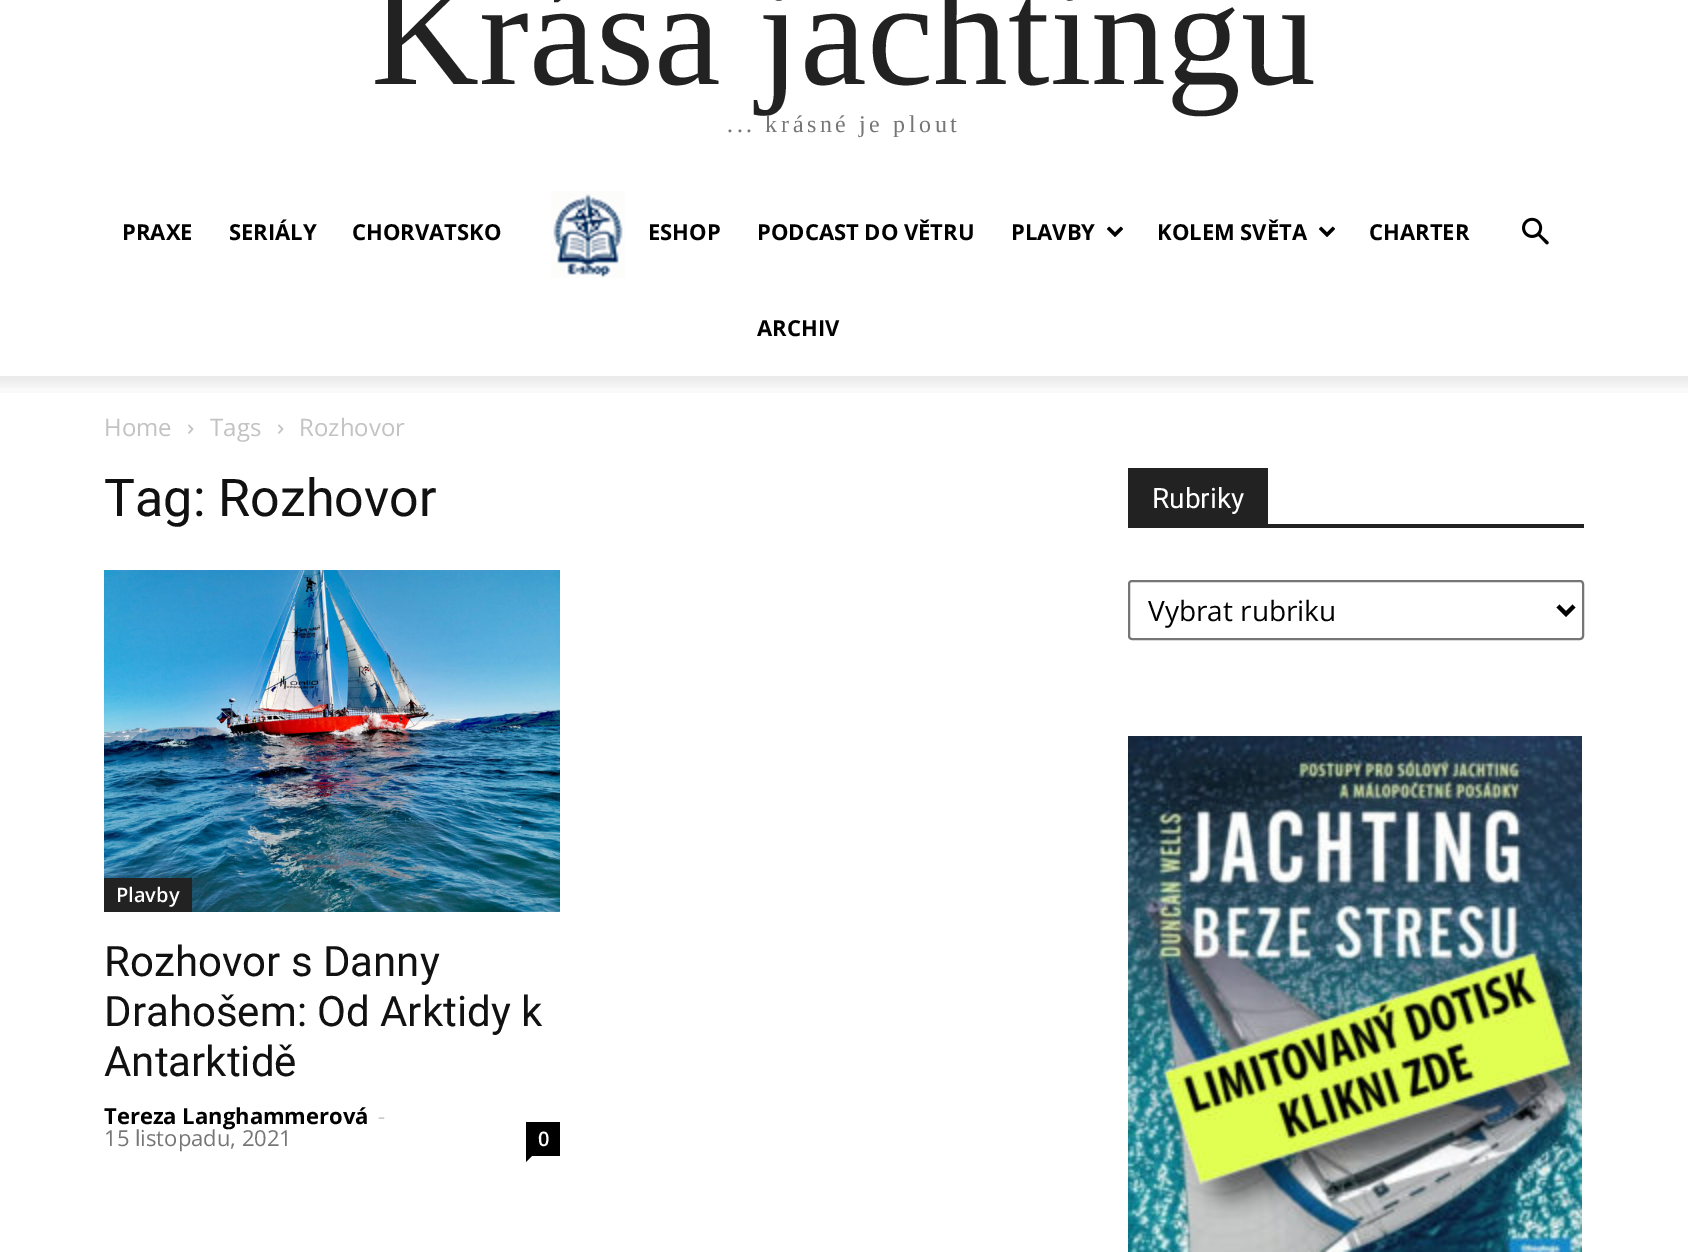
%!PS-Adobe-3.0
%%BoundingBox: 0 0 1688 1252
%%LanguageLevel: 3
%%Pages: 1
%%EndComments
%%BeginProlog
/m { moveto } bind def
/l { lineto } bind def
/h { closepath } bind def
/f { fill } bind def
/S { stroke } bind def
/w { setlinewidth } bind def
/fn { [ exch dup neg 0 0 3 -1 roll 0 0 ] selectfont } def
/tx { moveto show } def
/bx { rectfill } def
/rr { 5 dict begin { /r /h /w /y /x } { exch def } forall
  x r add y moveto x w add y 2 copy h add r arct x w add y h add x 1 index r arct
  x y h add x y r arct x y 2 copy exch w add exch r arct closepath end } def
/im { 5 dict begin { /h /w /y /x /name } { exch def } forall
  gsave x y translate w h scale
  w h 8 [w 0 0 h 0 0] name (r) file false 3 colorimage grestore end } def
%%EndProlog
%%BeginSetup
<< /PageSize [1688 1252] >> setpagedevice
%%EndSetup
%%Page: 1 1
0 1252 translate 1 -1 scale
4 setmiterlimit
1 setgray
0 0 1688 1252 bx
/LiberationSerif-Regular 150 fn
0.133 setgray
(Krása jachtingu) 371 84 tx
/LiberationSerif-Regular 24 fn
0.463 setgray
727 132 m 3.6 0 (... krásné je plout) ashow
/OpenSans-Bold 22 fn
0 setgray
(PRAXE) 122 240 tx
(SERIÁLY) 229 240 tx
(CHORVATSKO) 352 240 tx
(image0.raw) 551 191 74 87 im
(ESHOP) 648 240 tx
(PODCAST DO VĚTRU) 757 240 tx
(PLAVBY) 1011 240 tx
(image1.raw) 1107 226 16 11 im
(KOLEM SVĚTA) 1157 240 tx
(image1.raw) 1319 226 16 11 im
(CHARTER) 1369 240 tx
(ARCHIV) 757 336 tx
(image2.raw) 1522 217 27 28 im
(image3.raw) 0 376 1688 17 im
/OpenSans-Regular 24 fn
0.765 setgray
(Home) 104 436 tx
(image4.raw) 188 424 6 10 im
(Tags) 210 436 tx
(image4.raw) 278 424 6 10 im
(Rozhovor) 299 436 tx
/Roboto-Regular 52 fn
0.067 setgray
(Tag: Rozhovor) 104 516 tx
(image5.raw) 104 570 456 342 im
0.133 setgray
104 878 88 34 bx
/OpenSans-SemiBold 20 fn
1 setgray
(Plavby) 116 902 tx
/Roboto-Regular 42 fn
0.067 setgray
(Rozhovor s Danny) 104 976 tx
(Drahošem: Od Arktidy k) 104 1026 tx
(Antarktidě) 104 1076 tx
/OpenSans-Bold 22 fn
0 setgray
(Tereza Langhammerová) 104 1124 tx
/OpenSans-Regular 22 fn
0.8 setgray
(-) 378 1124 tx
0.463 setgray
(15 listopadu, 2021) 104 1146 tx
0 setgray
526 1122 34 34 bx
/OpenSans-SemiBold 20 fn
1 setgray
(0) 538 1146 tx
0 setgray
526 1156 m 532 1156 l 526 1162 l h f
0.133 setgray
1128 524 456 4 bx
1128 468 140 56 bx
/Roboto-Regular 28 fn
1 setgray
(Rubriky) 1152 508 tx
0.463 setgray
2 w
1129 581 454 58 3 rr S
0 setgray
4 w
1558 606 m 1566 614 l 1574 606 l S
/OpenSans-Regular 28 fn
(Vybrat rubriku) 1148 621 tx
(image6.raw) 1128 736 454 516 im
showpage
%%EOF
